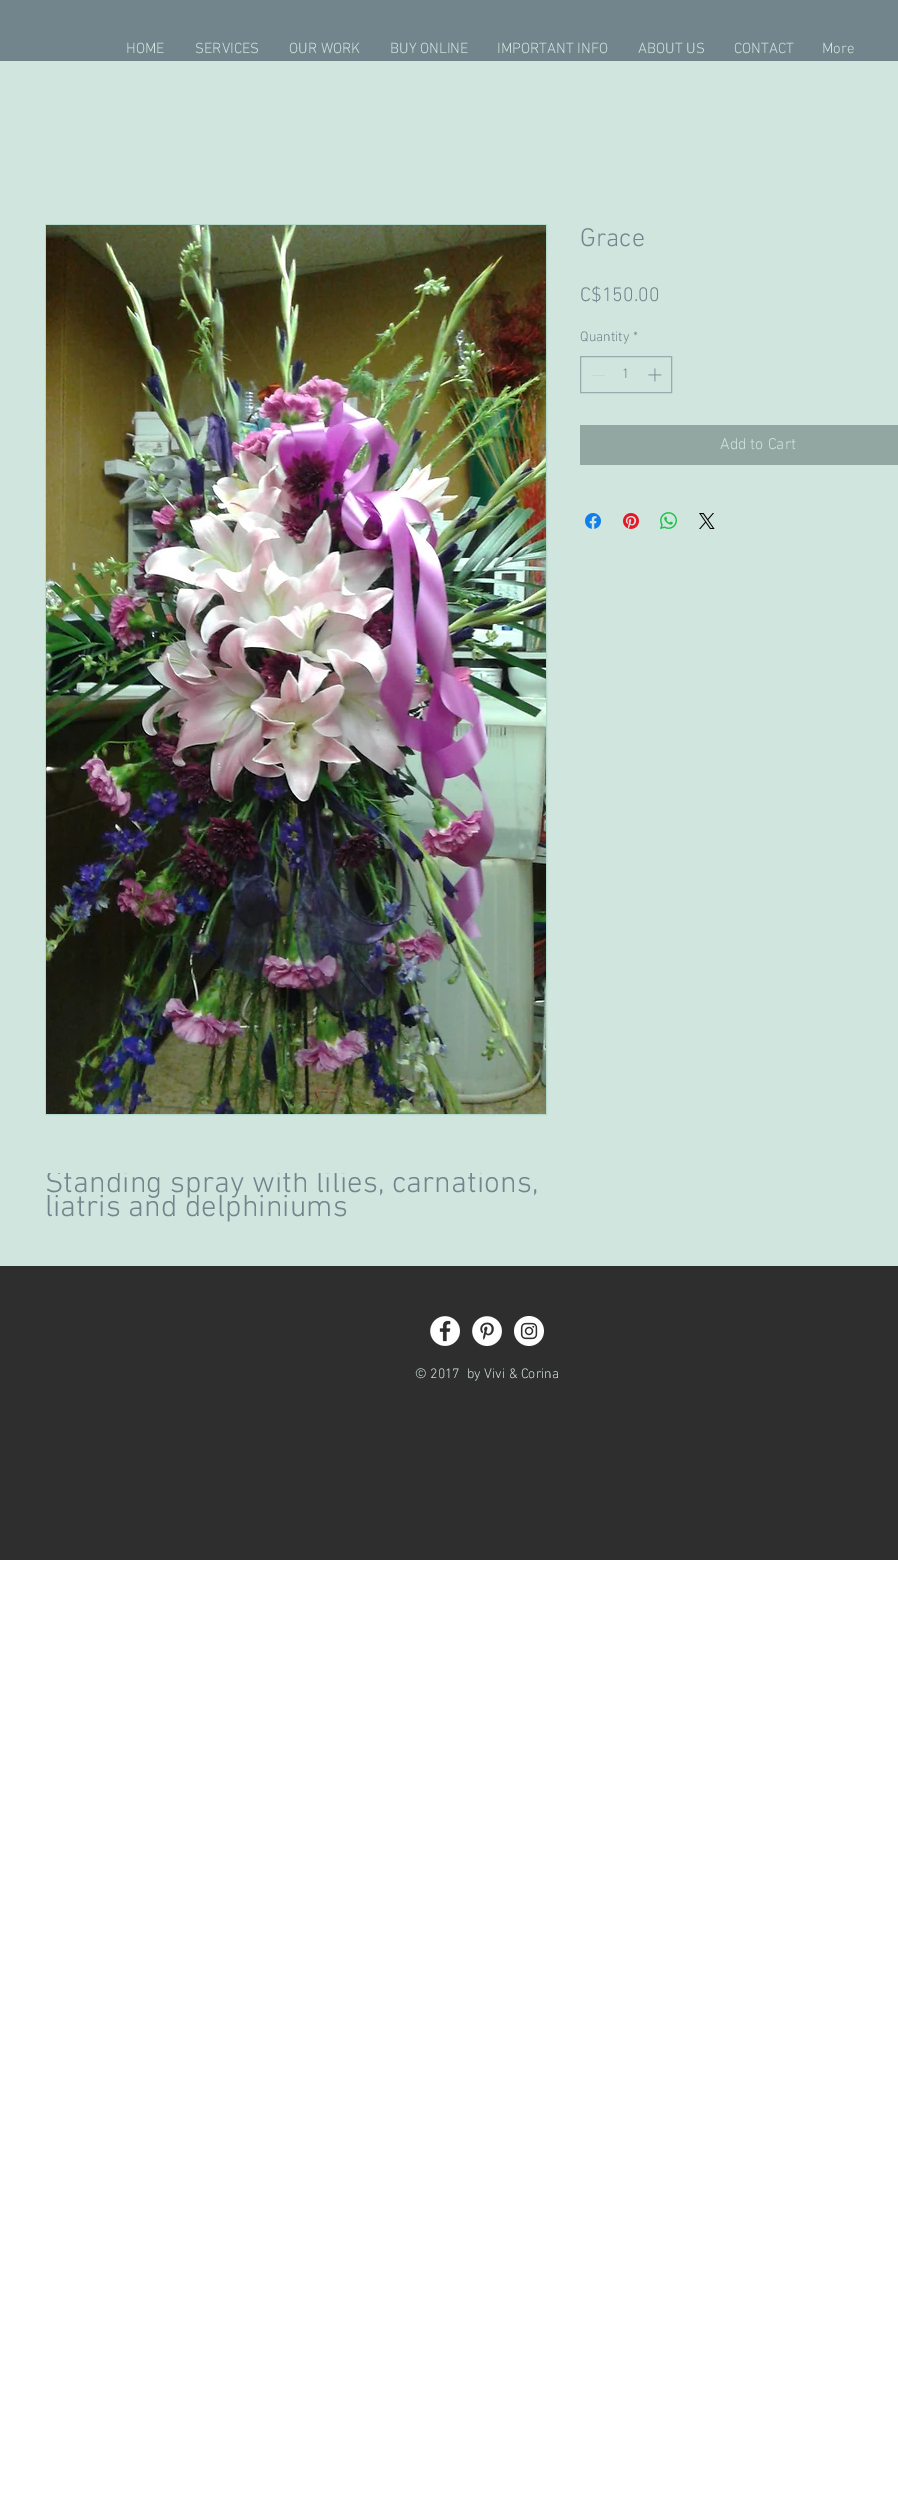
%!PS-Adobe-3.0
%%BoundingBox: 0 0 898 2509
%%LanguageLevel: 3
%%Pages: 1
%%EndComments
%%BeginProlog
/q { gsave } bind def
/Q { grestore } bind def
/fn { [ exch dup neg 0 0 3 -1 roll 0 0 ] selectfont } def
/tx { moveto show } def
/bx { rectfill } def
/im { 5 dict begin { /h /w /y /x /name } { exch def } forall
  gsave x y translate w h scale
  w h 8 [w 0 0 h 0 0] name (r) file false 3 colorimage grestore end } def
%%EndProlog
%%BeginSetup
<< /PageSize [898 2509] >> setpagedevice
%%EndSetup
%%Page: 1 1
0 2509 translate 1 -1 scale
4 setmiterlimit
1 setgray
0 0 898 2509 bx
0.447 0.522 0.549 setrgbcolor
0 0 898 61 bx
/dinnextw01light-Light 15 fn
0.816 0.898 0.871 setrgbcolor
(HOME) 126 53 tx
(SERVICES) 195 53 tx
(OUR WORK) 289 53 tx
(BUY ONLINE) 390 53 tx
(IMPORTANT INFO) 497 53 tx
(ABOUT US) 638 53 tx
(CONTACT) 734 53 tx
(More) 822 53 tx
0 61 898 1205 bx
/dinnextw01light-Light 26 fn
0.447 0.522 0.549 setrgbcolor
(Grace) 580 246 tx
/dinnextw01light-Light 20 fn
(C$150.00) 580 301 tx
/dinnextw01light-Light 14 fn
(Quantity) 580 341 tx
(*) 633 341 tx
0.596 0.671 0.678 setrgbcolor
580.5 356.5 91 36 rectstroke
0.8 0.839 0.827 setrgbcolor
592 375 13 1 bx
0.447 0.522 0.549 setrgbcolor
(1) 622 378 tx
(image0.raw) 648 368 14 14 im
0.573 0.651 0.635 setrgbcolor
580 425 318 40 bx
/dinnextw01light-Light 16 fn
0.816 0.898 0.871 setrgbcolor
(Add to Cart) 720 449 tx
(image1.raw) 585 513 16 16 im
(image2.raw) 623 513 16 16 im
(image3.raw) 660 512 17 17 im
(image4.raw) 699 513 16 16 im
0.702 0.851 0.8 setrgbcolor
45.5 224.5 501 890 rectstroke
(image5.raw) 46 225 500 889 im
q
45 1173 500 48 rectclip
/dinnextw01light-Light 31 fn
0.447 0.522 0.549 setrgbcolor
(Standing spray with lilies, carnations,) 45 1192 tx
Q
/dinnextw01light-Light 31 fn
0.447 0.522 0.549 setrgbcolor
(liatris and delphiniums) 45 1216 tx
0.184 0.18 0.18 setrgbcolor
0 1266 898 294 bx
(image6.raw) 430 1316 30 30 im
(image7.raw) 472 1316 30 30 im
(image8.raw) 514 1316 30 30 im
/dinnextw01light-Light 14 fn
0.816 0.898 0.871 setrgbcolor
(© 2017  by Vivi & Corina) 415 1378 tx
showpage
%%EOF
